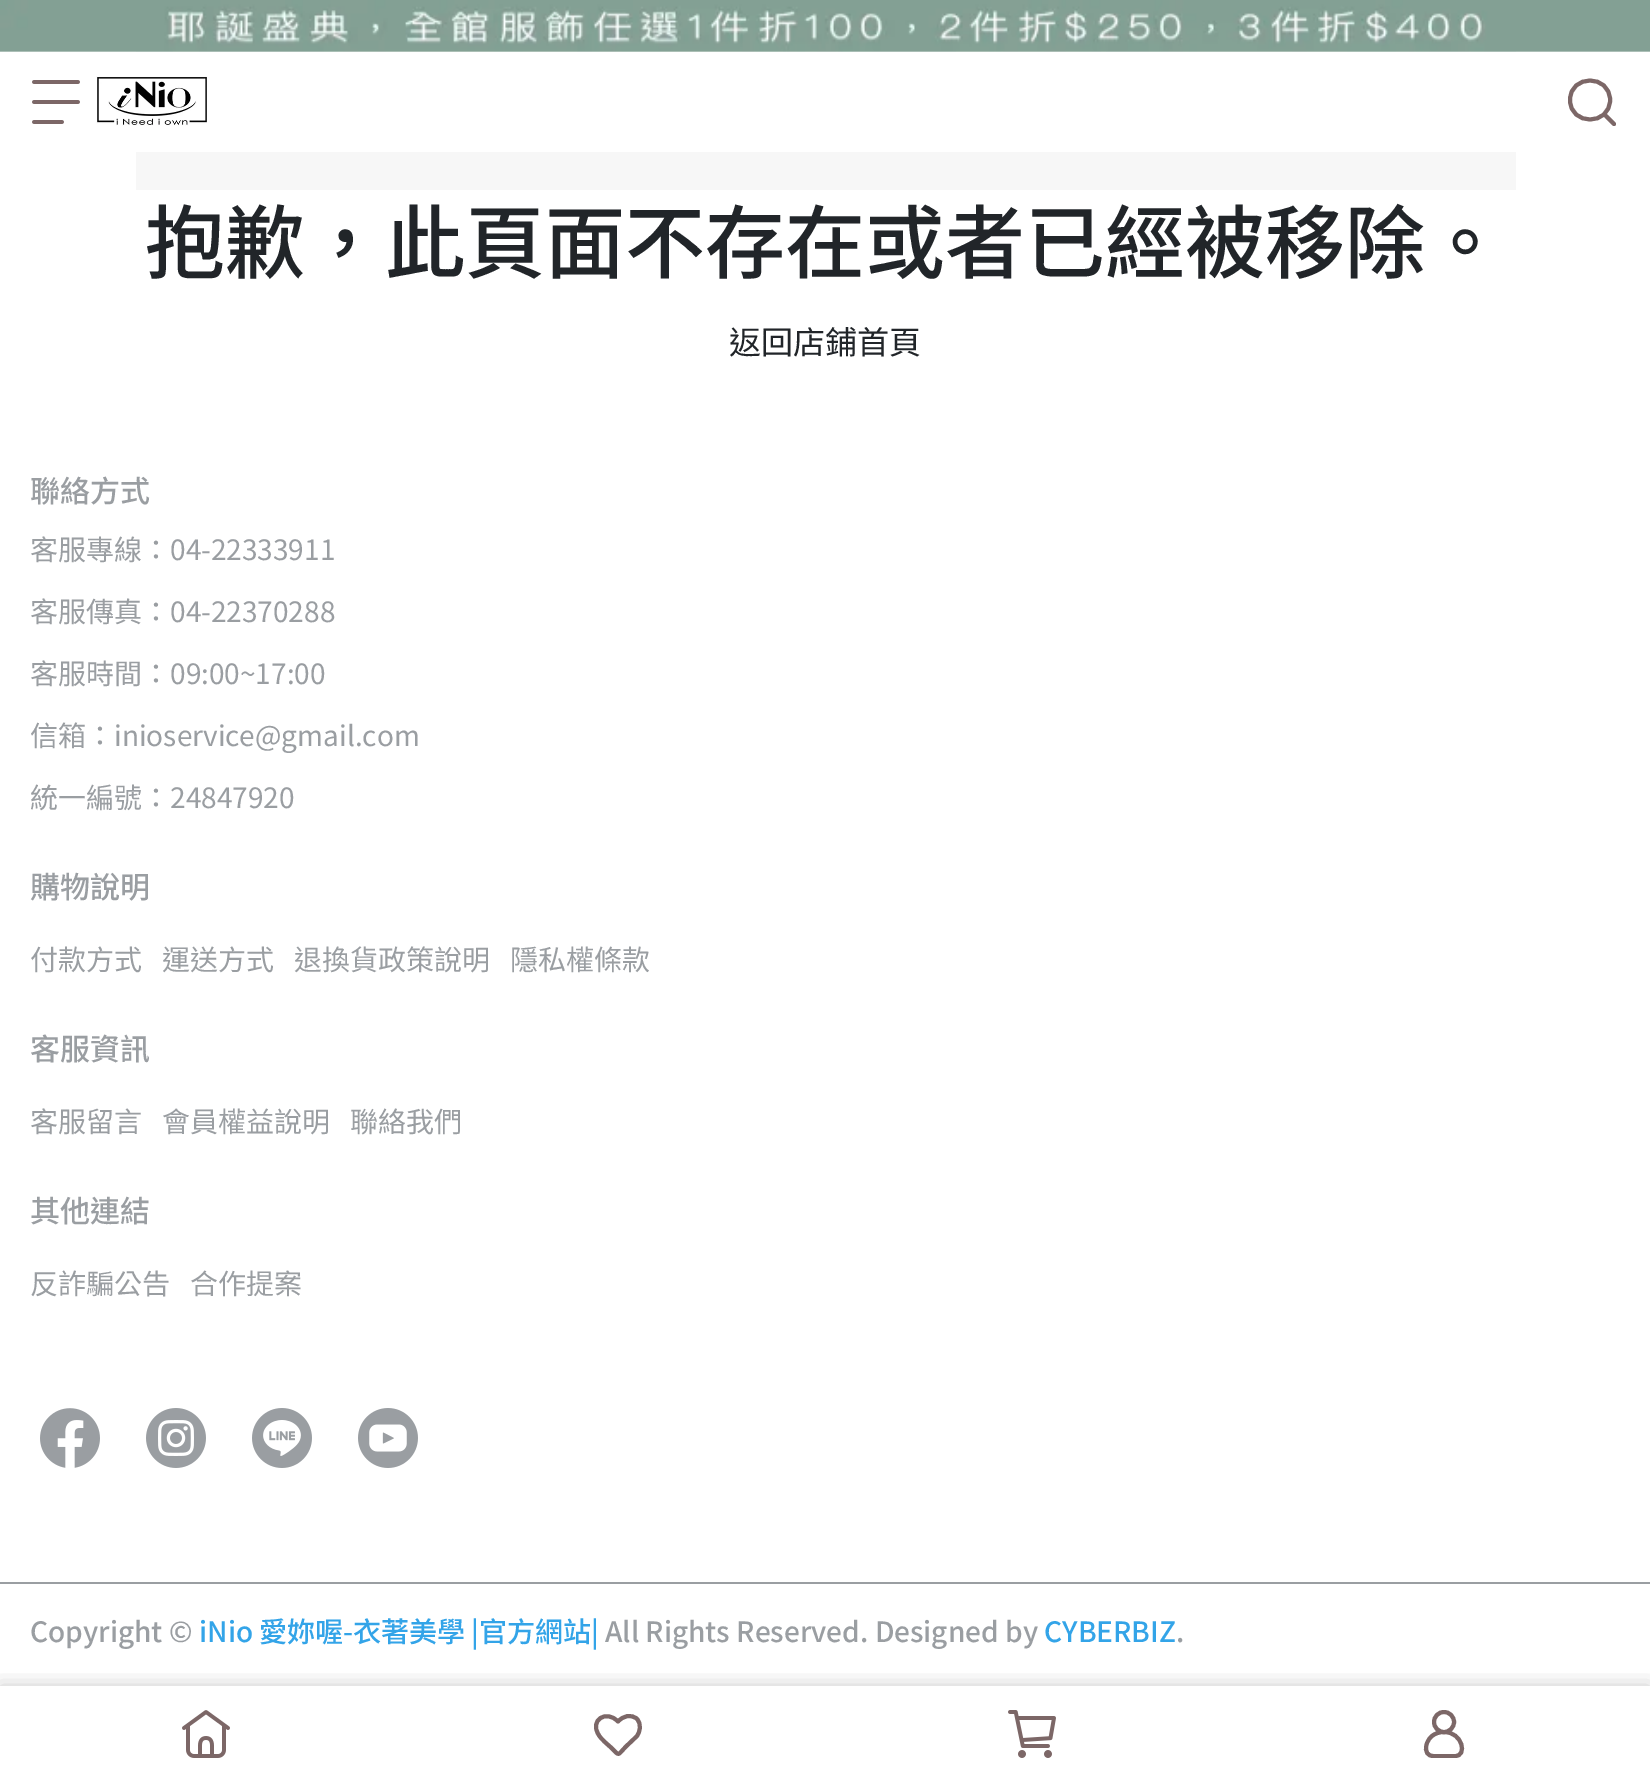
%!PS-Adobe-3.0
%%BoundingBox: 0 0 1650 1781
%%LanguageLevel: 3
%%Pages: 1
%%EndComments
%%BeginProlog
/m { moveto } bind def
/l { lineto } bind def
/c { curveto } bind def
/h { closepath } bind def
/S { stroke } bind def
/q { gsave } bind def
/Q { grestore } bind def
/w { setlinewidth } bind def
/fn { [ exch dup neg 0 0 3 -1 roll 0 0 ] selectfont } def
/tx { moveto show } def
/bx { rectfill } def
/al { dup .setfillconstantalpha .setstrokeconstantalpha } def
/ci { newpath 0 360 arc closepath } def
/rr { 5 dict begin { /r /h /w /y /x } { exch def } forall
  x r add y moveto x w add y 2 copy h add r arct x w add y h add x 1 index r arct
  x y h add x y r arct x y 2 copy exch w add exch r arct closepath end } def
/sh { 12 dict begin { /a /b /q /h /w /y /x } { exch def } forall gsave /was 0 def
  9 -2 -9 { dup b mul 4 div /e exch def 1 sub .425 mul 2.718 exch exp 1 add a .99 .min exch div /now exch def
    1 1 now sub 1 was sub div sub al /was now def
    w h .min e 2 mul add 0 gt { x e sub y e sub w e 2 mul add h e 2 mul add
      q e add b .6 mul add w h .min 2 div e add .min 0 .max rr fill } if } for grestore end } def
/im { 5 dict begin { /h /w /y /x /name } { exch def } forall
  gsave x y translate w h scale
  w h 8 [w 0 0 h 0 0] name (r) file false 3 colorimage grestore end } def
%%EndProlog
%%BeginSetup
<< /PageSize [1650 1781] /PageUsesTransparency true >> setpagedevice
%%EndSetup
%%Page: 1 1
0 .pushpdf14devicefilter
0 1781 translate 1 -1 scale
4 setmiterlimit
1 setgray
0 0 1650 1781 bx
0.969 setgray
136 51 1380 139 bx
(image0.raw) 0 0 1650 52 im
1 setgray
136 52 1380 100 bx
(image1.raw) 32 80 48 44 im
(image2.raw) 96 76 111 50 im
0.486 0.404 0.404 setrgbcolor
4 w
1 setlinecap
1 setlinejoin
1610 100 m 1610 126 1570 126 1570 100 c 1570 74 1610 74 1610 100 c h 1606 116 m 1614 124 l S
q
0 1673 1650 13 rectclip
0 setgray
0 1686 1650 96 0 10 0.2 sh
Q
(image3.raw) 182 1710 48 48 im
637 1719 m 631 1713.5 623 1716 618 1721.5 c 606 1709 589.5 1720.5 598.5 1734.5 c 601.5 1740 607.5 1744 612 1748.5 c 620 1756.5 617 1755.5 626.5 1746 c 636.5 1736.5 l 640.5 1731.5 641.5 1724 637 1719 c h S
(image4.raw) 1008 1710 48 48 im
0 setlinecap
0 setlinejoin
1444 1722 10 ci S
q
1420 1710 48 48 rectclip
1455 1756 m 1440.5 1756 l 1437 1756 1433.5 1756.5 1430.5 1755.5 c 1424.5 1753.5 1425.5 1746 1427.5 1742 c 1428.5 1740 1429.5 1738 1431.5 1736.5 c 1434.5 1733.5 1439.5 1732 1444 1732 c 1463 1732 1467.5 1756.5 1455 1756 c h S
Q
/NotoSansTC-Medium 80 fn
0.129 0.145 0.161 setrgbcolor
(抱歉，此頁面不存在或者已經被移除。) 145 272 tx
/NotoSansTC-Regular 32 fn
(返回店鋪首頁) 729 354 tx
/NotoSansTC-Medium 30 fn
0.604 0.62 0.635 setrgbcolor
(聯絡方式) 30 502 tx
/NotoSansTC-Regular 28 fn
(客服專線：04-22333911) 30 560 tx
(客服傳真：04-22370288) 30 622 tx
(客服時間：09:00~17:00) 30 684 tx
(信箱：inioservice@gmail.com) 30 746 tx
(統一編號：24847920) 30 808 tx
/NotoSansTC-Medium 30 fn
(購物說明) 30 898 tx
/NotoSansTC-Regular 28 fn
(付款方式) 30 970 tx
(運送方式) 162 970 tx
(退換貨政策說明) 294 970 tx
(隱私權條款) 510 970 tx
/NotoSansTC-Medium 30 fn
(客服資訊) 30 1060 tx
/NotoSansTC-Regular 28 fn
(客服留言) 30 1132 tx
(會員權益說明) 162 1132 tx
(聯絡我們) 350 1132 tx
/NotoSansTC-Medium 30 fn
(其他連結) 30 1222 tx
/NotoSansTC-Regular 28 fn
(反詐騙公告) 30 1294 tx
(合作提案) 190 1294 tx
(image5.raw) 40 1408 60 60 im
(image6.raw) 146 1408 60 60 im
(image7.raw) 252 1408 60 60 im
(image8.raw) 358 1408 60 60 im
0 1582 1650 2 bx
/NotoSansTC-Medium 28 fn
(Copyright ©) 30 1642 tx
0.2 0.643 0.91 setrgbcolor
(iNio 愛妳喔-衣著美學 |官方網站|) 199 1642 tx
0.604 0.62 0.635 setrgbcolor
(All Rights Reserved. Designed by) 605 1642 tx
0.2 0.643 0.91 setrgbcolor
(CYBERBIZ) 1044 1642 tx
0.604 0.62 0.635 setrgbcolor
(.) 1176 1642 tx
.poppdf14devicefilter showpage
%%EOF
